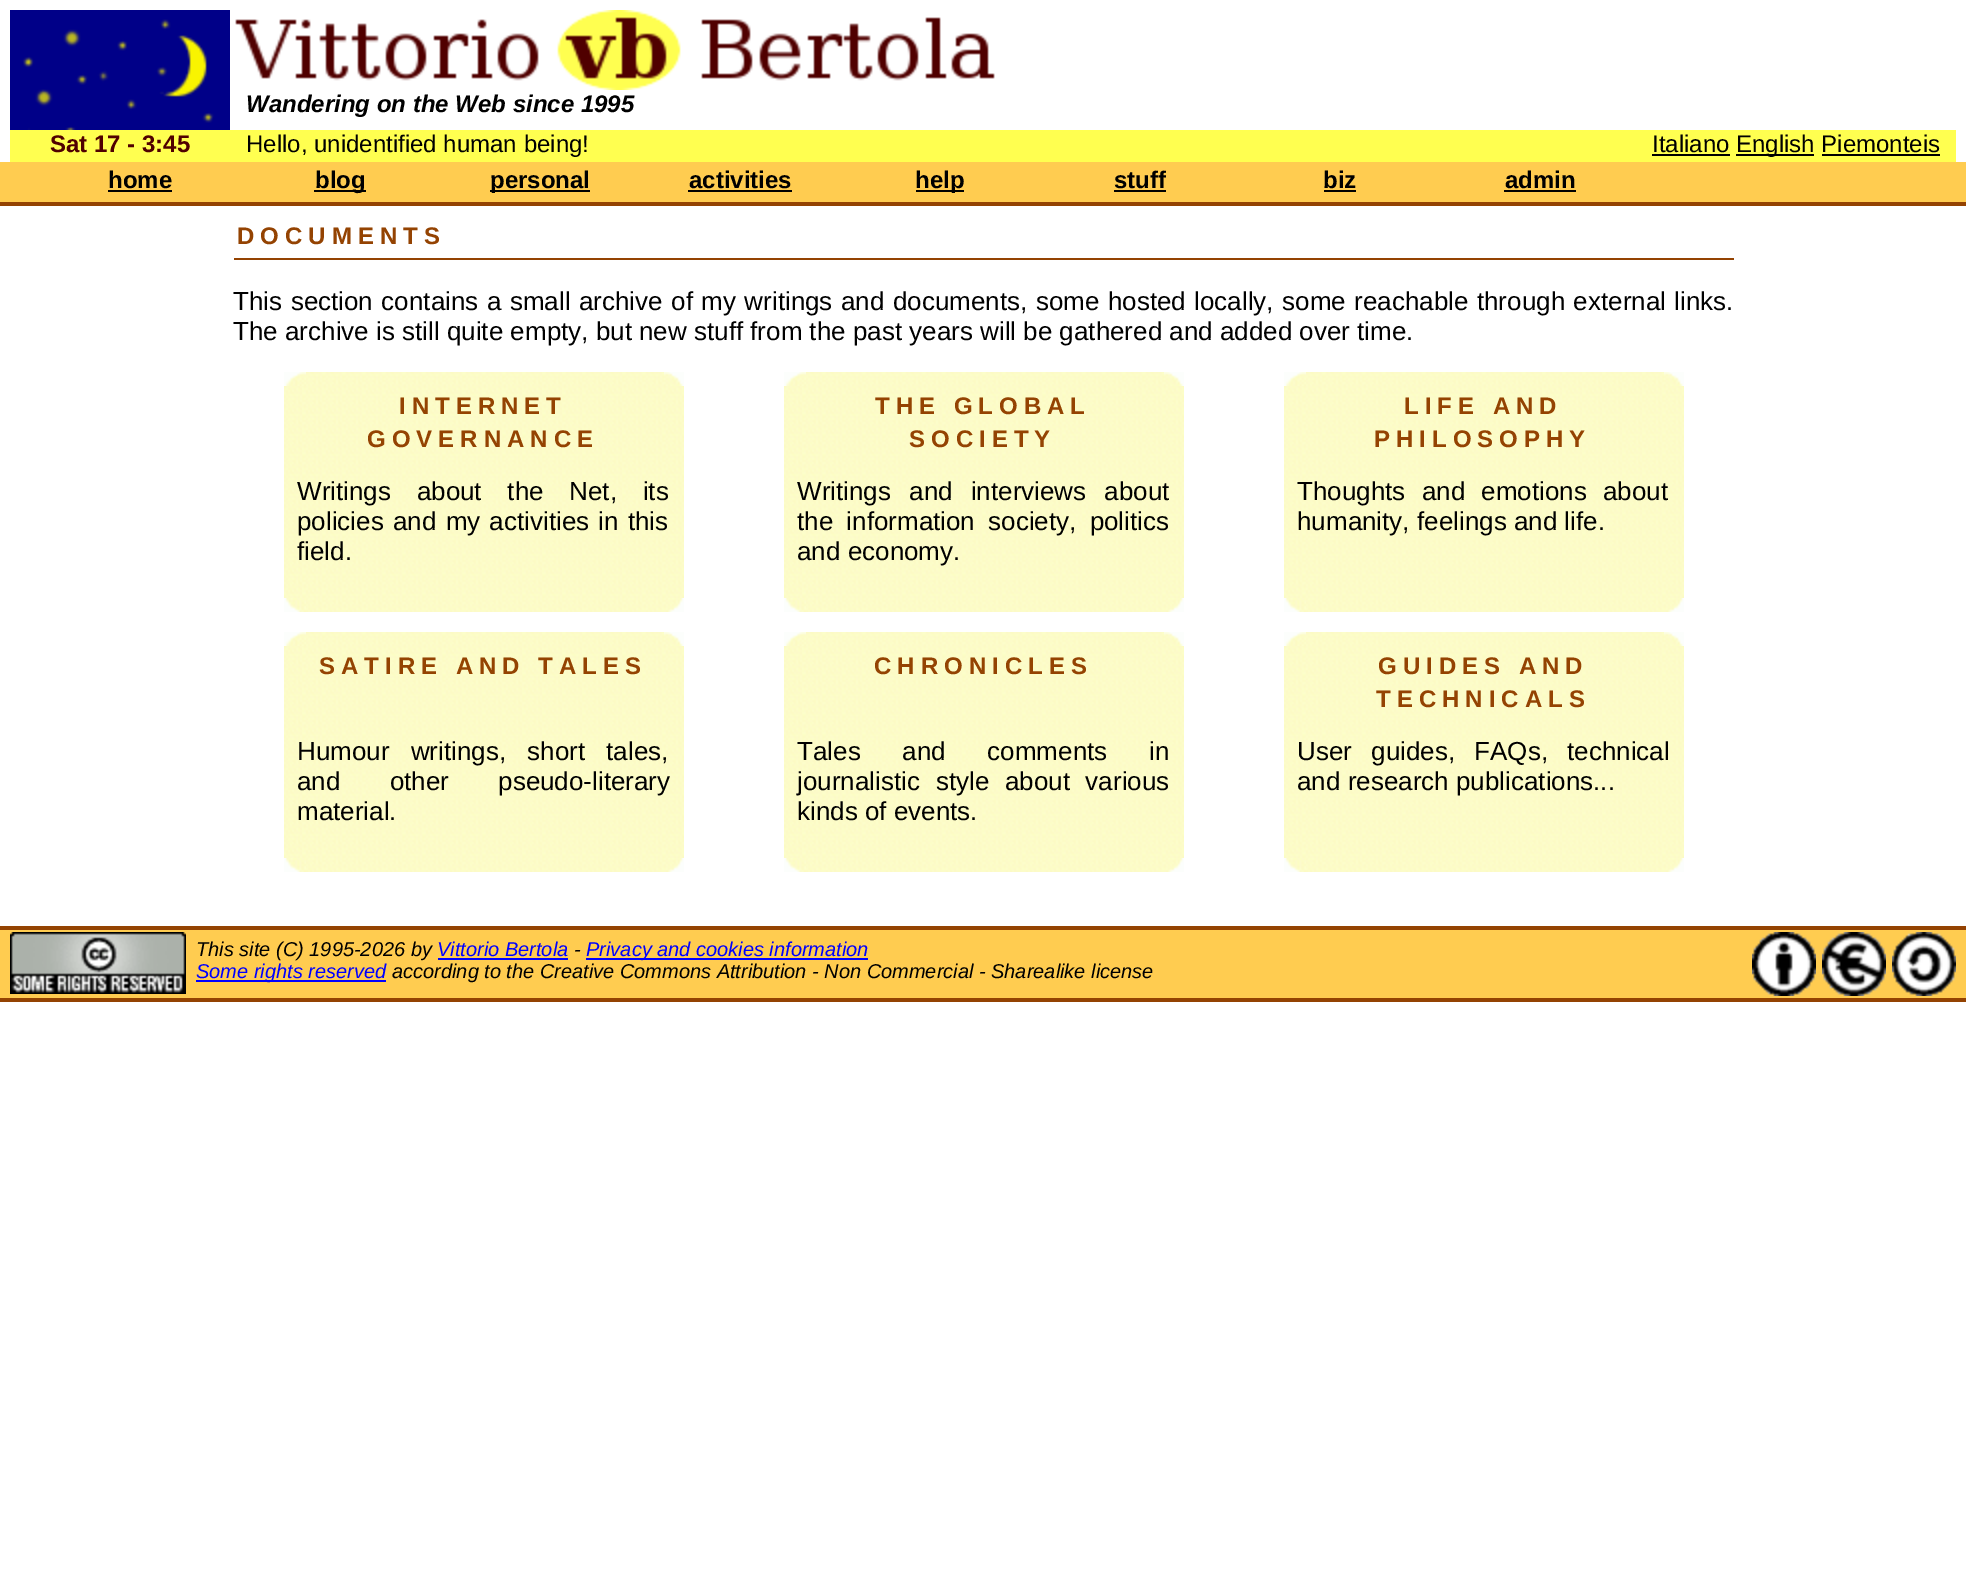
%!PS-Adobe-3.0
%%BoundingBox: 0 0 1966 1588
%%LanguageLevel: 3
%%Pages: 1
%%EndComments
%%BeginProlog
/m { moveto } bind def
/fn { [ exch dup neg 0 0 3 -1 roll 0 0 ] selectfont } def
/tx { moveto show } def
/bx { rectfill } def
/im { 5 dict begin { /h /w /y /x /name } { exch def } forall
  gsave x y translate w h scale
  w h 8 [w 0 0 h 0 0] name (r) file false 3 colorimage grestore end } def
%%EndProlog
%%BeginSetup
<< /PageSize [1966 1588] >> setpagedevice
%%EndSetup
%%Page: 1 1
0 1588 translate 1 -1 scale
4 setmiterlimit
1 setgray
0 0 1966 1588 bx
(image0.raw) 10 10 220 120 im
(image1.raw) 235 10 760 80 im
/LiberationSans-BoldItalic 24 fn
0 setgray
(Wandering on the Web since 1995) 246 112 tx
1 1 0.314 setrgbcolor
10 130 220 32 bx
/LiberationSans-Bold 24 fn
0.314 0 0 setrgbcolor
(Sat 17 - 3:45) 50 152 tx
1 1 0.314 setrgbcolor
230 130 1726 32 bx
/LiberationSans-Regular 24 fn
0 setgray
(Hello, unidentified human being!) 246 152 tx
(Italiano) 1652 152 tx
1652 154 78 2 bx
1736 154 78 2 bx
(English Piemonteis) 1736 152 tx
1822 154 118 2 bx
1 0.8 0.314 setrgbcolor
0 162 1966 40 bx
/LiberationSans-Bold 24 fn
0 setgray
(home) 108 188 tx
108 190 64 2 bx
314 190 52 2 bx
(blog) 315 188 tx
490 190 100 2 bx
(personal) 490 188 tx
(activities) 689 188 tx
688 190 104 2 bx
916 190 48 2 bx
(help) 915 188 tx
(stuff) 1114 188 tx
1114 190 52 2 bx
(biz) 1323 188 tx
1324 190 32 2 bx
(admin) 1505 188 tx
1504 190 72 2 bx
0.58 0.263 0.008 setrgbcolor
0 202 1966 4 bx
234 258 1500 2 bx
237 244 m 6 0 (DOCUMENTS) ashow
/LiberationSans-Regular 26 fn
0 setgray
233 310 m 1.25 0 32 (This section contains a small archive of my writings and documents, some hosted locally, some reachable through external links.) widthshow
(The archive is still quite empty, but new stuff from the past years will be gathered and added over time.) 233 340 tx
(image2.raw) 284 372 400 240 im
(image3.raw) 664 372 20 14 im
(image4.raw) 284 372 22 14 im
/LiberationSans-Bold 24 fn
0.58 0.263 0.008 setrgbcolor
399 414 m 6 0 (INTERNET) ashow
367 447 m 6 0 (GOVERNANCE) ashow
/LiberationSans-Regular 26 fn
0 setgray
297 500 m 18.5 0 32 (Writings about the Net, its) widthshow
297 530 m 2 0 32 (policies and my activities in this) widthshow
(field.) 297 560 tx
(image5.raw) 668 598 16 14 im
(image6.raw) 284 598 22 14 im
(image7.raw) 784 372 400 240 im
(image3.raw) 1164 372 20 14 im
(image8.raw) 784 372 22 14 im
/LiberationSans-Bold 24 fn
0.58 0.263 0.008 setrgbcolor
875 414 m 6 0 (THE GLOBAL) ashow
909 447 m 6 0 (SOCIETY) ashow
/LiberationSans-Regular 26 fn
0 setgray
797 500 m 11 0 32 (Writings and interviews about) widthshow
797 530 m 6 0 32 (the information society, politics) widthshow
(and economy.) 797 560 tx
(image5.raw) 1168 598 16 14 im
(image9.raw) 784 598 22 14 im
(image10.raw) 1284 372 400 240 im
(image3.raw) 1664 372 20 14 im
(image4.raw) 1284 372 22 14 im
/LiberationSans-Bold 24 fn
0.58 0.263 0.008 setrgbcolor
1404 414 m 6 0 (LIFE AND) ashow
1374 447 m 6 0 (PHILOSOPHY) ashow
/LiberationSans-Regular 26 fn
0 setgray
1297 500 m 9 0 32 (Thoughts and emotions about) widthshow
(humanity, feelings and life.) 1297 530 tx
(image5.raw) 1668 598 16 14 im
(image6.raw) 1284 598 22 14 im
(image11.raw) 284 632 400 240 im
(image3.raw) 664 632 20 14 im
(image4.raw) 284 632 22 14 im
/LiberationSans-Bold 24 fn
0.58 0.263 0.008 setrgbcolor
319 674 m 6 0 (SATIRE AND TALES) ashow
/LiberationSans-Regular 26 fn
0 setgray
297 760 m 14 0 32 (Humour writings, short tales,) widthshow
297 790 m 42 0 32 (and other pseudo-literary) widthshow
(material.) 297 820 tx
(image5.raw) 668 858 16 14 im
(image6.raw) 284 858 22 14 im
(image12.raw) 784 632 400 240 im
(image3.raw) 1164 632 20 14 im
(image8.raw) 784 632 22 14 im
/LiberationSans-Bold 24 fn
0.58 0.263 0.008 setrgbcolor
874 674 m 6 0 (CHRONICLES) ashow
/LiberationSans-Regular 26 fn
0 setgray
797 760 m 34.5 0 32 (Tales and comments in) widthshow
797 790 m 8.5 0 32 (journalistic style about various) widthshow
(kinds of events.) 797 820 tx
(image5.raw) 1168 858 16 14 im
(image9.raw) 784 858 22 14 im
(image13.raw) 1284 632 400 240 im
(image3.raw) 1664 632 20 14 im
(image4.raw) 1284 632 22 14 im
/LiberationSans-Bold 24 fn
0.58 0.263 0.008 setrgbcolor
1378 674 m 6 0 (GUIDES AND) ashow
1376 707 m 6 0 (TECHNICALS) ashow
/LiberationSans-Regular 26 fn
0 setgray
1297 760 m 12 0 32 (User guides, FAQs, technical) widthshow
(and research publications...) 1297 790 tx
(image5.raw) 1668 858 16 14 im
(image6.raw) 1284 858 22 14 im
1 0.8 0.314 setrgbcolor
0 930 1966 68 bx
0.58 0.263 0.008 setrgbcolor
0 926 1966 4 bx
0 998 1966 4 bx
(image14.raw) 10 932 176 62 im
/LiberationSans-Italic 20 fn
0 setgray
(This site \(C\) 1995-2026 by) 196 956 tx
0 0 1 setrgbcolor
(Vittorio Bertola) 437 956 tx
438 958 130 2 bx
0 setgray
(-) 574 956 tx
0 0 1 setrgbcolor
586 958 282 2 bx
(Privacy and cookies information) 586 956 tx
196 980 190 2 bx
(Some rights reserved) 196 978 tx
0 setgray
(according to the Creative Commons Attribution - Non Commercial - Sharealike license) 392 978 tx
(image15.raw) 1752 932 64 64 im
(image16.raw) 1822 932 64 64 im
(image17.raw) 1892 932 64 64 im
showpage
%%EOF
